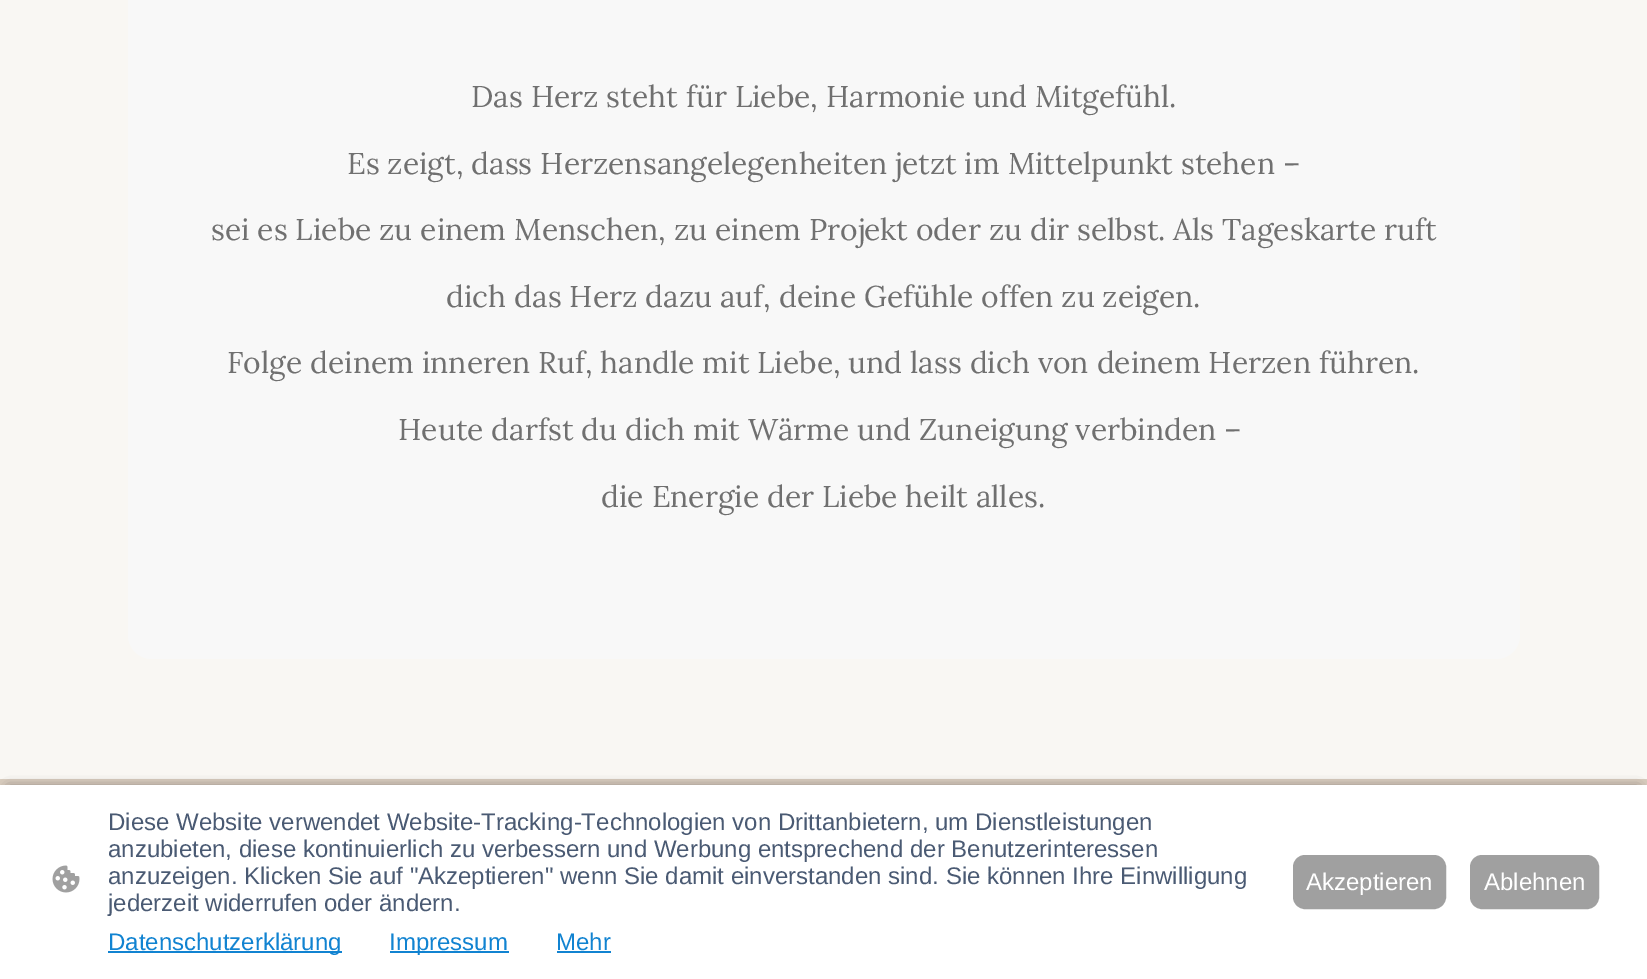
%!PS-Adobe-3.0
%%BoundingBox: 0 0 1647 979
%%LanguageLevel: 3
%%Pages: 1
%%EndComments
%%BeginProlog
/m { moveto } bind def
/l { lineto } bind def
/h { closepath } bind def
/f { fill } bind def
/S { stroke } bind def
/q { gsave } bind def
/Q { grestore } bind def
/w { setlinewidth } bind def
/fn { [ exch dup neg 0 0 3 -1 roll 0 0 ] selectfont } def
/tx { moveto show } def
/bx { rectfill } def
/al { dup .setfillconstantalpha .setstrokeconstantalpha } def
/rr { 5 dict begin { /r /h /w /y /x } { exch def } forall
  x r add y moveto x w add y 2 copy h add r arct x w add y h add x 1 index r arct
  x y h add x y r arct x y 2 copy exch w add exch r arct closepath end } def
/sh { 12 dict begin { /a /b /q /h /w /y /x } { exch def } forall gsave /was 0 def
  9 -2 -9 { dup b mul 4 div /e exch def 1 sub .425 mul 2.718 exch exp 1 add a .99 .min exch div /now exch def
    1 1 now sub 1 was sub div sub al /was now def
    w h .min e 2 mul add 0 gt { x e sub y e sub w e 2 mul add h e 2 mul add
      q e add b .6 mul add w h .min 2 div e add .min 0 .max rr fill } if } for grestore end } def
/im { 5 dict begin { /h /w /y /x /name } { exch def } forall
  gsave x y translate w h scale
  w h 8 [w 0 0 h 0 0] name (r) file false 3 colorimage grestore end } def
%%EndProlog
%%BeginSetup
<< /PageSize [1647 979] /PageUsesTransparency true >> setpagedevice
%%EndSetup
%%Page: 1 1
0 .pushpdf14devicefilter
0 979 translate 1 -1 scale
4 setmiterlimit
1 setgray
0 0 1647 979 bx
0.976 0.969 0.953 setrgbcolor
0 -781 m 0 779 l 1647 779 l 1647 -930 l 1640 -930 l h f
0.973 setgray
128 -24 1392 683 24 rr f
/Lora-Regular 30 fn
0.439 setgray
(Das Herz steht für Liebe, Harmonie und Mitgefühl.) 471 107 tx
(Es zeigt, dass Herzensangelegenheiten jetzt im Mittelpunkt stehen –) 347 174 tx
(sei es Liebe zu einem Menschen, zu einem Projekt oder zu dir selbst. Als Tageskarte ruft) 211 240 tx
(dich das Herz dazu auf, deine Gefühle offen zu zeigen.) 446 307 tx
(Folge deinem inneren Ruf, handle mit Liebe, und lass dich von deinem Herzen führen.) 227 373 tx
(Heute darfst du dich mit Wärme und Zuneigung verbinden –) 398 440 tx
(die Energie der Liebe heilt alles.) 601 507 tx
0.851 0.804 0.749 setrgbcolor
0 779 1647 6 bx
0 setgray
9 789 1629 177 0 6 0.63 sh
1 setgray
0 785 1647 194 bx
(image0.raw) 52 865 28 28 im
/LiberationSans-Regular 24 fn
0.29 0.353 0.451 setrgbcolor
(Diese Website verwendet Website-Tracking-Technologien von Drittanbietern, um Dienstleistungen) 108 830 tx
(anzubieten, diese kontinuierlich zu verbessern und Werbung entsprechend der Benutzerinteressen) 108 857 tx
(anzuzeigen. Klicken Sie auf "Akzeptieren" wenn Sie damit einverstanden sind. Sie können Ihre Einwilligung) 108 884 tx
(jederzeit widerrufen oder ändern.) 108 911 tx
0.067 0.514 0.82 setrgbcolor
108 951 234 2 bx
(Datenschutzerklärung) 108 950 tx
390 951 119 2 bx
(Impressum) 389 950 tx
(Mehr) 556 950 tx
557 951 54 2 bx
0.627 setgray
1294 856 151 52 11 rr q f Q
2 w
S
1 setgray
(Akzeptieren) 1306 890 tx
0.627 setgray
1471 856 127 52 11 rr q f Q
S
1 setgray
(Ablehnen) 1484 890 tx
.poppdf14devicefilter showpage
%%EOF
